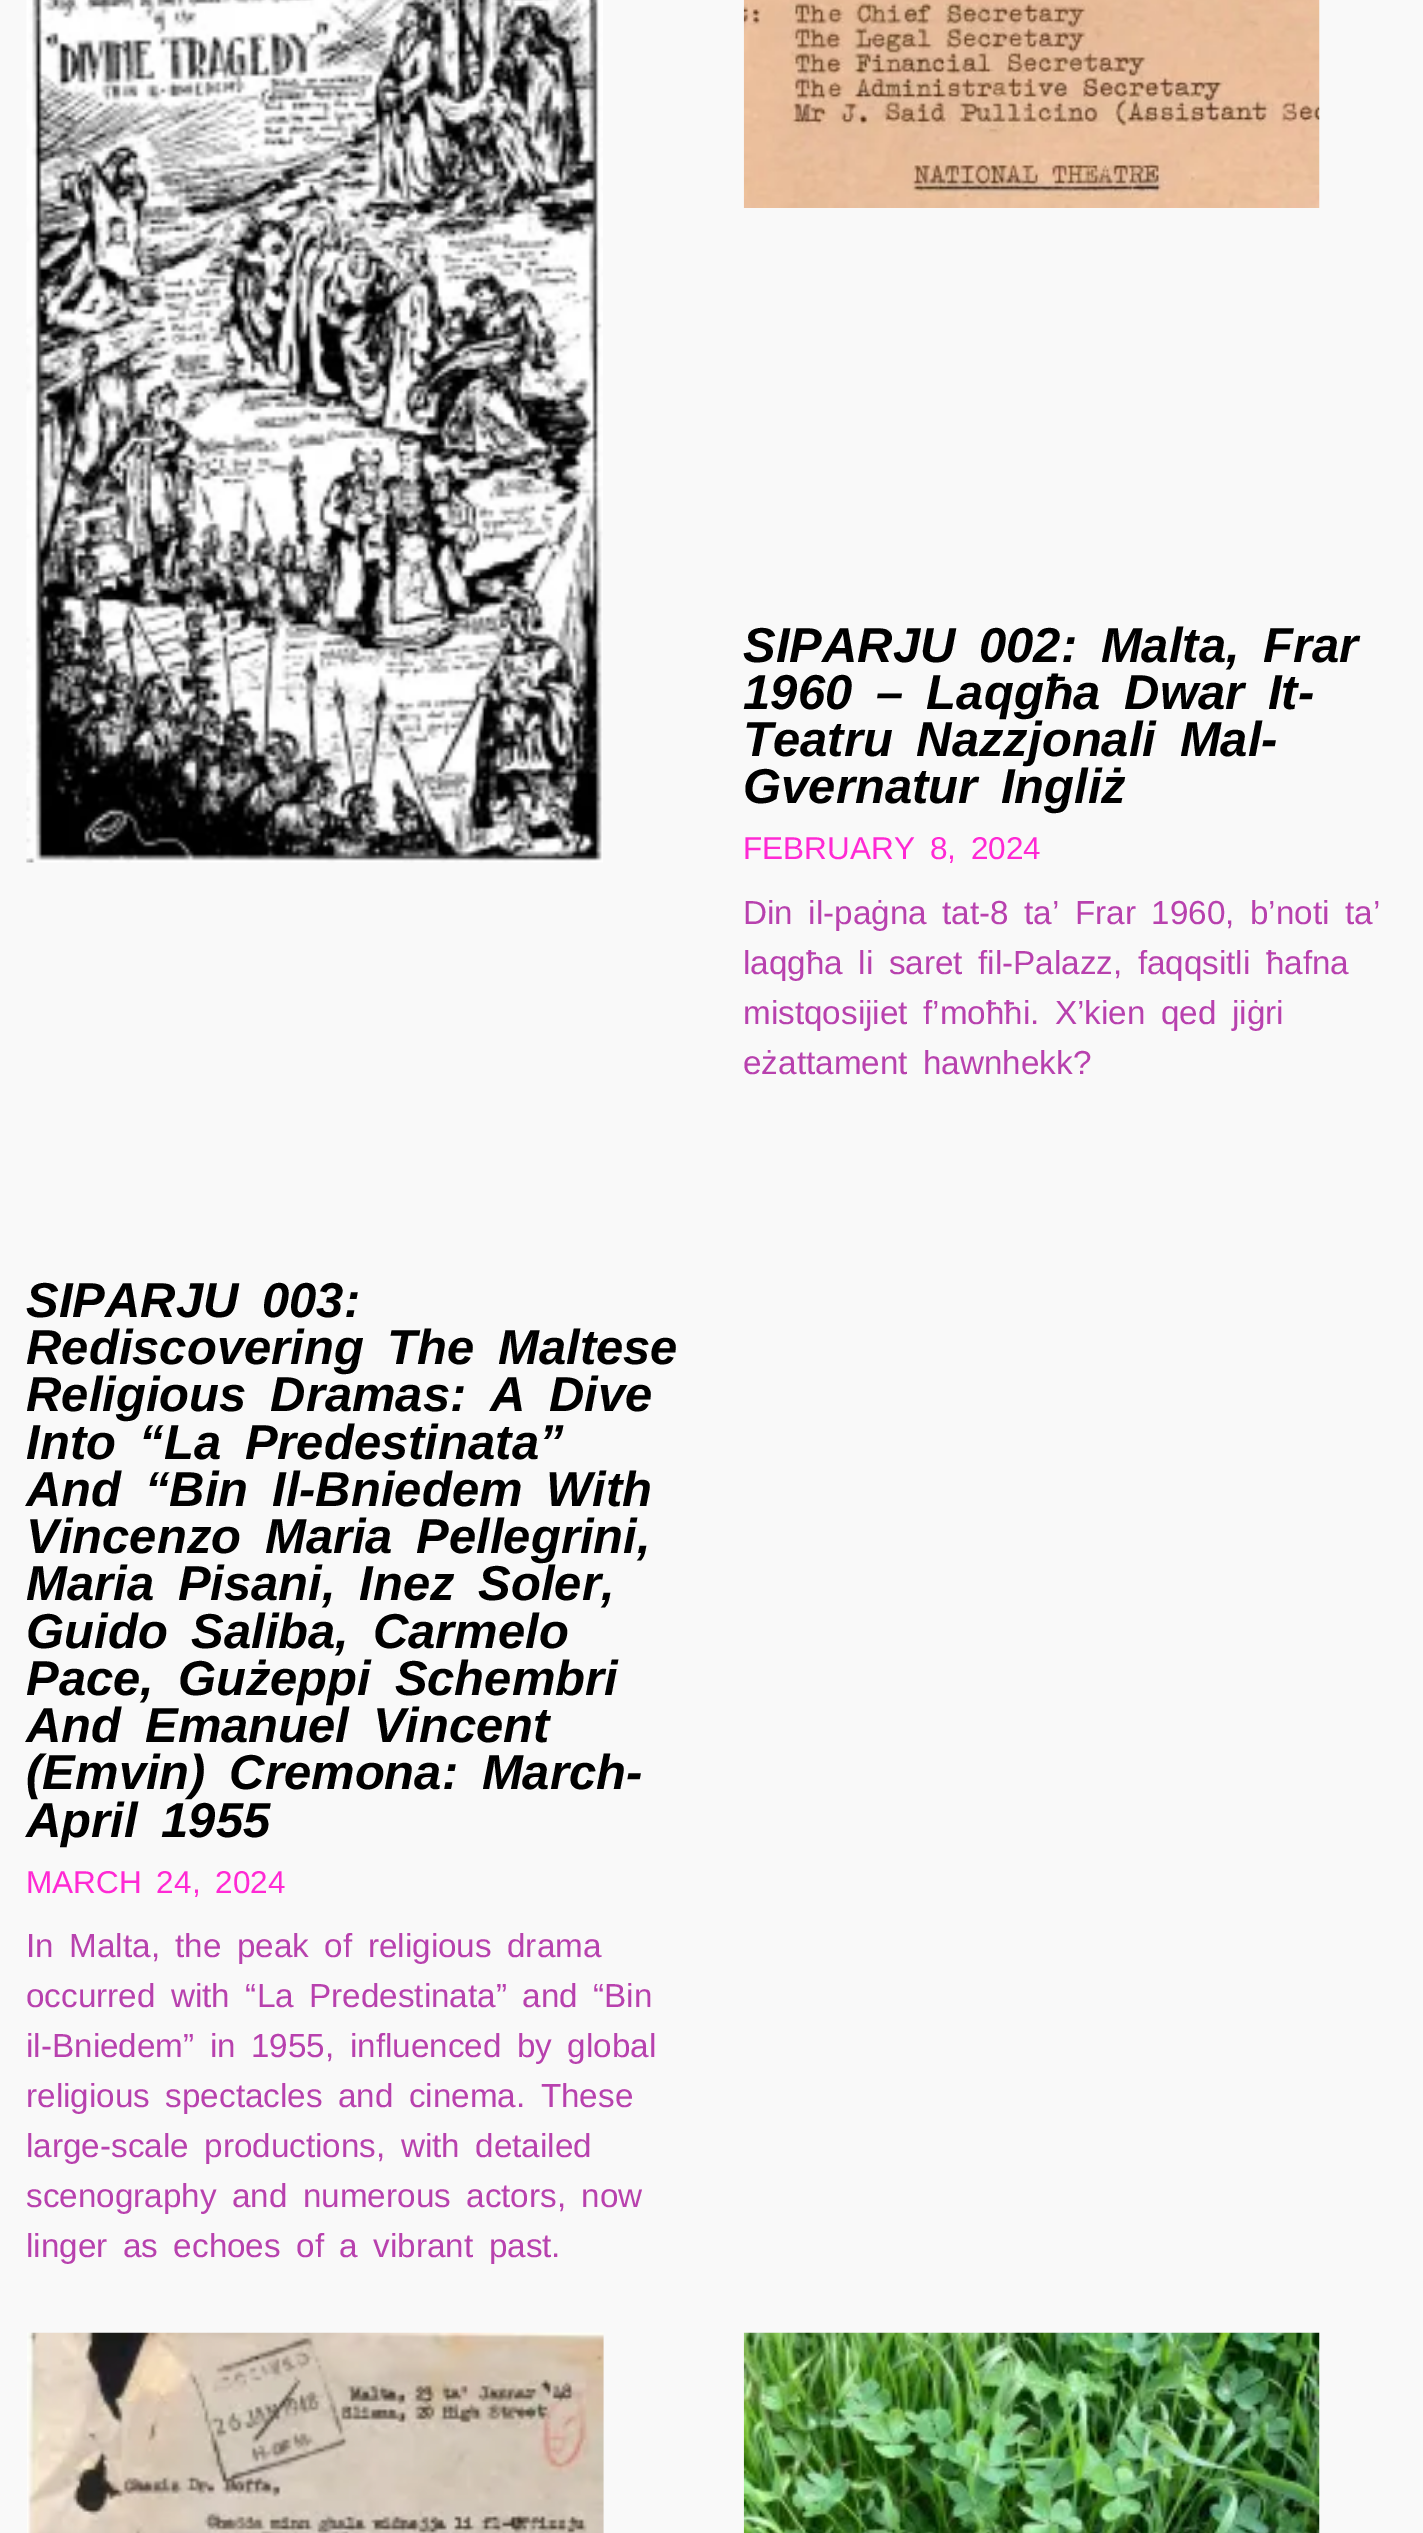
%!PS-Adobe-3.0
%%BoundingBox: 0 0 1423 2533
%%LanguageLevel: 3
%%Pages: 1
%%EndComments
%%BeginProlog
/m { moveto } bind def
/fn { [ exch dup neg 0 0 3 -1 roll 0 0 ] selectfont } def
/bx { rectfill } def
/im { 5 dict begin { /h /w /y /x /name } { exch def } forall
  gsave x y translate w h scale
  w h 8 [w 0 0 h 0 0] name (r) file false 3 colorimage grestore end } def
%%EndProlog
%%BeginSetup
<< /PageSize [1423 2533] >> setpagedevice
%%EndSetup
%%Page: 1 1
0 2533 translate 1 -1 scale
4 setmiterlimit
0.976 setgray
0 0 1423 2533 bx
(image0.raw) 743 0 577 208 im
/LiberationSans-BoldItalic 49 fn
0 setgray
743 662 m 10 0 32 (SIPARJU 002: Malta, Frar) widthshow
743 709 m 10 0 32 (1960 – Laqgħa Dwar It-) widthshow
743 756 m 10 0 32 (Teatru Nazzjonali Mal-) widthshow
743 803 m 10 0 32 (Gvernatur Ingliż) widthshow
/LiberationSans-Regular 31.5 fn
1 0.161 0.831 setrgbcolor
743 859 m 6.25 0 32 (FEBRUARY 8, 2024) widthshow
/LiberationSans-Regular 33.25 fn
0.722 0.255 0.682 setrgbcolor
743 924 m 6.25 0 32 (Din il-paġna tat-8 ta’ Frar 1960, b’noti ta’) widthshow
743 974 m 6.25 0 32 (laqgħa li saret fil-Palazz, faqqsitli ħafna) widthshow
743 1024 m 6.25 0 32 (mistqosijiet f’moħħi. X’kien qed jiġri) widthshow
743 1074 m 6.25 0 32 (eżattament hawnhekk?) widthshow
(image1.raw) 26 0 577 863 im
/LiberationSans-BoldItalic 49 fn
0 setgray
26 1317 m 10 0 32 (SIPARJU 003:) widthshow
26 1364 m 10 0 32 (Rediscovering The Maltese) widthshow
26 1411 m 10 0 32 (Religious Dramas: A Dive) widthshow
26 1459 m 10 0 32 (Into “La Predestinata”) widthshow
26 1506 m 10 0 32 (And “Bin Il-Bniedem With) widthshow
26 1553 m 10 0 32 (Vincenzo Maria Pellegrini,) widthshow
26 1600 m 10 0 32 (Maria Pisani, Inez Soler,) widthshow
26 1648 m 10 0 32 (Guido Saliba, Carmelo) widthshow
26 1695 m 10 0 32 (Pace, Gużeppi Schembri) widthshow
26 1742 m 10 0 32 (And Emanuel Vincent) widthshow
26 1789 m 10 0 32 (\(Emvin\) Cremona: March-) widthshow
26 1837 m 10 0 32 (April 1955) widthshow
/LiberationSans-Regular 31.5 fn
1 0.161 0.831 setrgbcolor
26 1893 m 6.25 0 32 (MARCH 24, 2024) widthshow
/LiberationSans-Regular 33.25 fn
0.722 0.255 0.682 setrgbcolor
26 1957 m 6.25 0 32 (In Malta, the peak of religious drama) widthshow
26 2007 m 6.25 0 32 (occurred with “La Predestinata” and “Bin) widthshow
26 2057 m 6.25 0 32 (il-Bniedem” in 1955, influenced by global) widthshow
26 2107 m 6.25 0 32 (religious spectacles and cinema. These) widthshow
26 2157 m 6.25 0 32 (large-scale productions, with detailed) widthshow
26 2207 m 6.25 0 32 (scenography and numerous actors, now) widthshow
26 2257 m 6.25 0 32 (linger as echoes of a vibrant past.) widthshow
(image2.raw) 27 2332 577 201 im
(image3.raw) 743 2332 577 201 im
showpage
%%EOF
